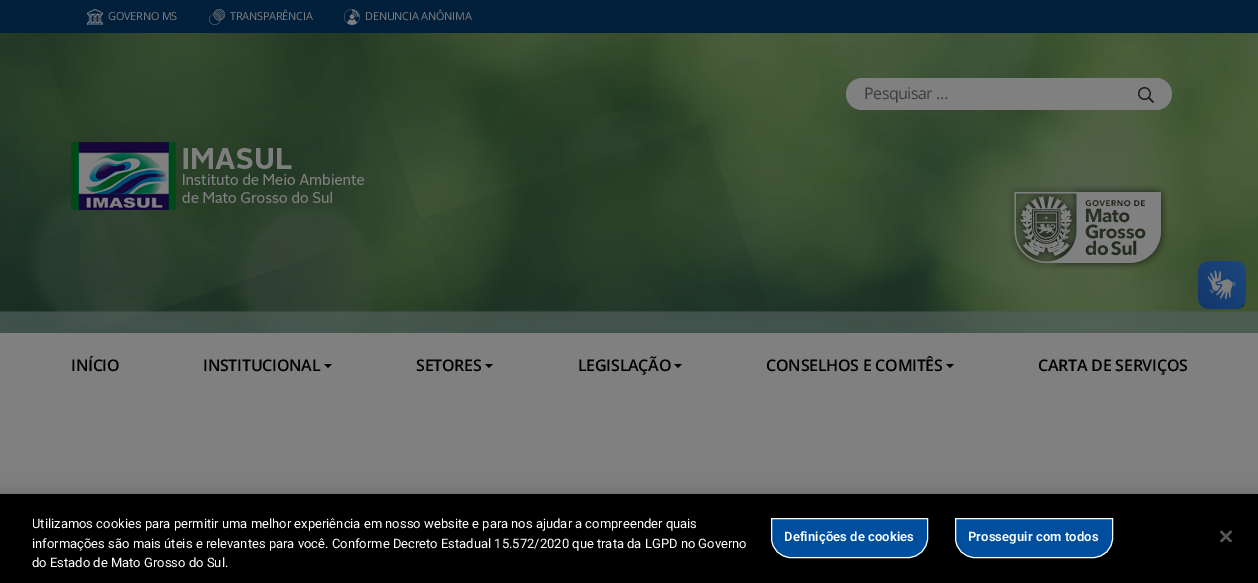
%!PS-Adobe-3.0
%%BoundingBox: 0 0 1258 583
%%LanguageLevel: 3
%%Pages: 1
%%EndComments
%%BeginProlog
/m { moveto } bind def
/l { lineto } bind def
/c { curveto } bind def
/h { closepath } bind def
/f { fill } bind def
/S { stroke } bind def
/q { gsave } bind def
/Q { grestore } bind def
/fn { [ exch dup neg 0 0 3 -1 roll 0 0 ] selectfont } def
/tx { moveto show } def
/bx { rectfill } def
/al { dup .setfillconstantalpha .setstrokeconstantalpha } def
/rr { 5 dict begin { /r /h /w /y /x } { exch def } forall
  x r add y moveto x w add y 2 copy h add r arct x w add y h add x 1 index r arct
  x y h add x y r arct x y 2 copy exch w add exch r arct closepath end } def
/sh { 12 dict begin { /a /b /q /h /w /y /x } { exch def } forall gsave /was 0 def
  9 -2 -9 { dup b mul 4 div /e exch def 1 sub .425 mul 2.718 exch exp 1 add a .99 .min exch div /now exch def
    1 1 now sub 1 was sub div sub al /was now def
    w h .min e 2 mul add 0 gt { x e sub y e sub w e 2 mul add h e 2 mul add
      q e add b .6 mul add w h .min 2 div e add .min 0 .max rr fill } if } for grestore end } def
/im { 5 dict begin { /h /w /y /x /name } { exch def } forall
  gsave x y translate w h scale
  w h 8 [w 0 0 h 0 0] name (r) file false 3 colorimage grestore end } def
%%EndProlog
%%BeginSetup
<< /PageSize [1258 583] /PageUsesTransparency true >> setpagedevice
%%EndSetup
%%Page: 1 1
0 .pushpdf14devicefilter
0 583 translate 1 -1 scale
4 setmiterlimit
0.502 setgray
0 0 1258 583 bx
0 0.122 0.231 setrgbcolor
0 0 1258 33 bx
(image0.raw) 87 9 16 16 im
/OpenSans-Regular 11 fn
0.502 setgray
108 20 m -0.25 0 (GOVERNO MS) ashow
(image1.raw) 209 9 16 16 im
230 20 m -0.25 0 (TRANSPARÊNCIA) ashow
(image2.raw) 344 9 16 16 im
365 20 m -0.25 0 (DENUNCIA ANÔNIMA) ashow
(image3.raw) 0 33 1258 300 im
846 78 326 32 16 rr f
/OpenSans-Regular 16 fn
0.231 setgray
864 99 m -0.5 0 (Pesquisar …) ashow
(image4.raw) 1138 87 16 16 im
(image5.raw) 1007 185 161 85 im
(image6.raw) 71 142 293 68 im
(image7.raw) 1198 261 48 48 im
(image8.raw) 1198 261 48 48 im
/OpenSans-SemiBold 16 fn
0 setgray
71 371 m -0.25 0 (INÍCIO) ashow
203 371 m -0.25 0 (INSTITUCIONAL) ashow
324 364 m 332 364 l 328 368 l h f
416 371 m -0.25 0 (SETORES) ashow
485 364 m 493 364 l 489 368 l h f
578 371 m -0.25 0 (LEGISLAÇÃO) ashow
674 364 m 682 364 l 678 368 l h f
766 371 m -0.25 0 (CONSELHOS E COMITÊS) ashow
946 364 m 954 364 l 950 368 l h f
1038 371 m -0.25 0 (CARTA DE SERVIÇOS) ashow
0 494 1258 89 0 9 0.2 sh
0 494 1258 89 bx
/Roboto-Regular 13 fn
1 setgray
(Utilizamos cookies para permitir uma melhor experiência em nosso website e para nos ajudar a compreender quais) 32 528 tx
(informações são mais úteis e relevantes para você. Conforme Decreto Estadual 15.572/2020 que trata da LGPD no Governo) 32 548 tx
(do Estado de Mato Grosso do Sul.) 32 567 tx
0 0.31 0.624 setrgbcolor
771.5 518.5 m 927.5 518.5 l 927.5 538 l 927.5 549 919 557.5 908 557.5 c 791 557.5 l 780 557.5 771.5 549 771.5 538 c h q f Q
1 setgray
S
/Roboto-SemiBold 13 fn
784 541 m 0.1 0 (Definições de cookies) ashow
0 0.31 0.624 setrgbcolor
955.5 518.5 m 1112.5 518.5 l 1112.5 538 l 1112.5 549 1104 557.5 1093 557.5 c 975 557.5 l 964 557.5 955.5 549 955.5 538 c h q f Q
1 setgray
S
968 541 m 0.1 0 (Prosseguir com todos) ashow
(image9.raw) 1220 530 12 12 im
.poppdf14devicefilter showpage
%%EOF
